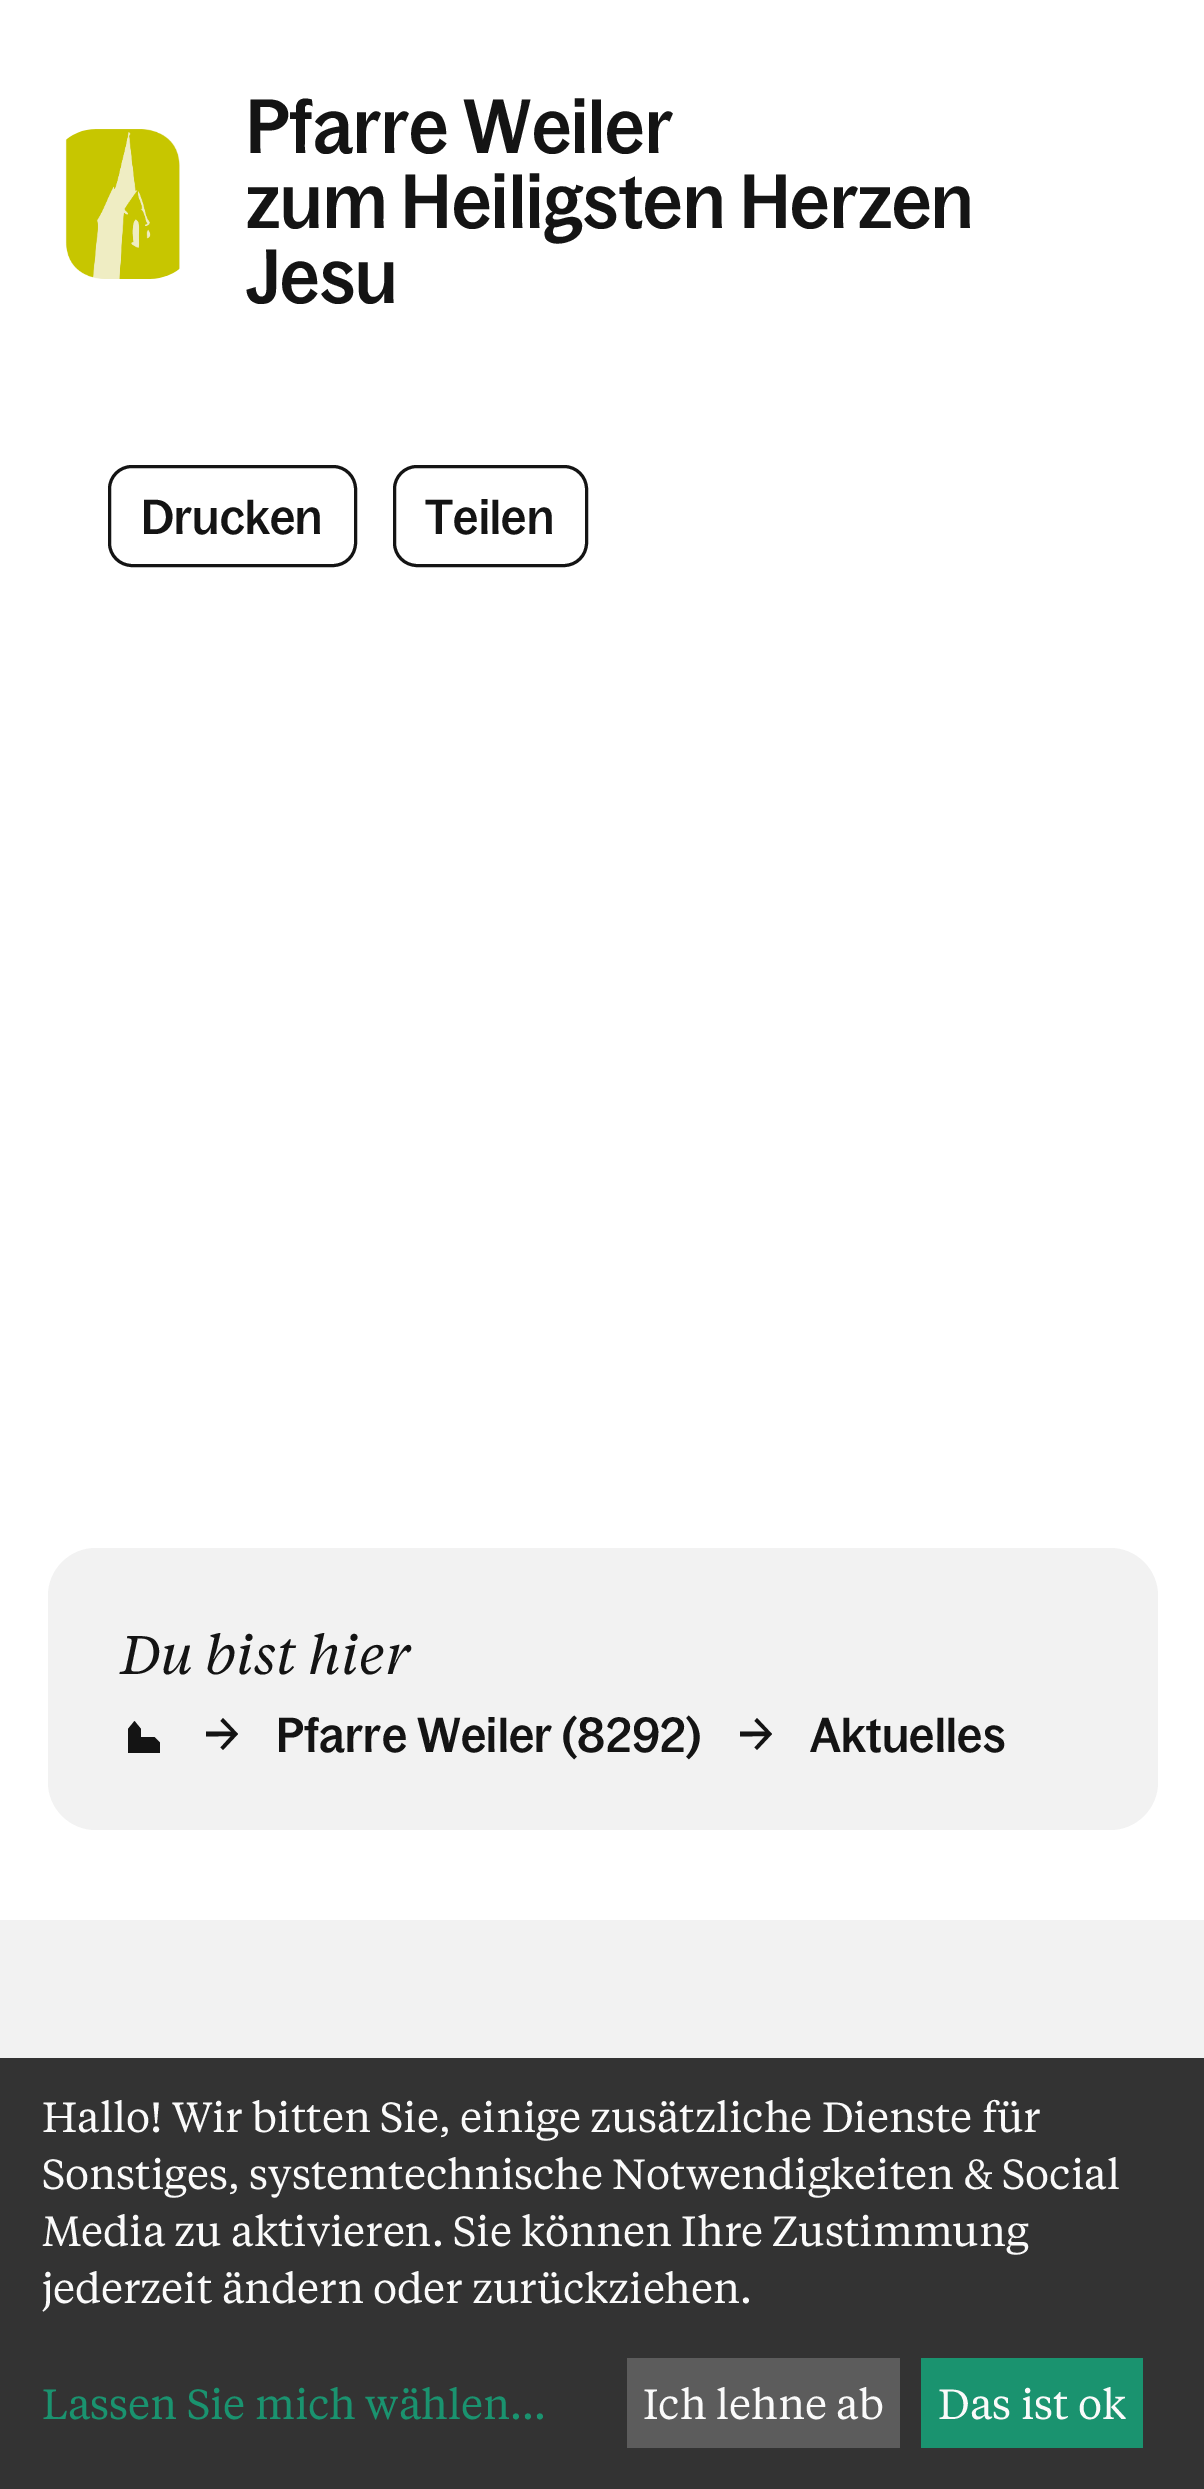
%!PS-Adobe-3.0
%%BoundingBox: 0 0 1204 2489
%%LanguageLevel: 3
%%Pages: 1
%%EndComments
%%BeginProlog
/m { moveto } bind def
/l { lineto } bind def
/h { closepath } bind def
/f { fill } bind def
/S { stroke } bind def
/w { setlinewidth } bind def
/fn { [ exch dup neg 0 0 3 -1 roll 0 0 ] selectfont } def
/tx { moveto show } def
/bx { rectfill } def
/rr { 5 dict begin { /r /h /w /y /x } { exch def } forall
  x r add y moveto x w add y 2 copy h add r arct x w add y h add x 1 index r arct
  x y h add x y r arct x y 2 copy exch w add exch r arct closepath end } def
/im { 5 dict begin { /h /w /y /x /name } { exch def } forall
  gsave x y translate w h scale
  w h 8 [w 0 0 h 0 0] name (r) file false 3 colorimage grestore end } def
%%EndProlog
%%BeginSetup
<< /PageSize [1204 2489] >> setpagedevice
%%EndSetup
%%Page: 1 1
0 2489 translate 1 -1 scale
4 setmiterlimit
1 setgray
0 0 1204 2489 bx
(image0.raw) 65 129 115 150 im
/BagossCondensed-Medium 75 fn
0.078 setgray
(Pfarre Weiler) 246 153 tx
(zum Heiligsten Herzen) 246 228 tx
(Jesu) 246 303 tx
3 w
109.5 466.5 246 99 22.5 rr S
/BagossCondensed-Medium 48 fn
141 534 m 0.25 0 (Drucken) ashow
394.5 466.5 192 99 22.5 rr S
425 534 m 0.25 0 (Teilen) ashow
0.949 setgray
48 1548 1110 282 48 rr f
/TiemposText-Italic 54 fn
0.078 setgray
(Du bist hier) 120 1674 tx
134.5 1721 m 128 1729 l 128 1753 l 160 1753 l 160 1742.5 l 154.5 1737 l 141 1737 l 141 1729 l h f
223 1750 m 238 1734 l 223 1718 l 220.5 1721 l 231 1731.5 l 206 1731.5 l 206 1736.5 l 231 1736 l 220.5 1747.5 l h f
/BagossCondensed-Medium 48 fn
276 1752 m 0.25 0 (Pfarre Weiler \(8292\)) ashow
757 1750 m 772 1734 l 757 1718 l 754.5 1721 l 765 1731.5 l 740 1731.5 l 740 1736.5 l 765 1736 l 754.5 1747.5 l h f
810 1752 m 0.25 0 (Aktuelles) ashow
0.949 setgray
0 1920 1204 138 bx
0.2 setgray
0 2058 1204 431 bx
/TiemposText-Regular 42 fn
0.98 setgray
(Hallo! Wir bitten Sie, einige zusätzliche Dienste für) 42 2132 tx
(Sonstiges, systemtechnische Notwendigkeiten & Social) 42 2189 tx
(Media zu aktivieren. Sie können Ihre Zustimmung) 42 2246 tx
(jederzeit ändern oder zurückziehen.) 42 2303 tx
0.102 0.576 0.435 setrgbcolor
(Lassen Sie mich wählen...) 42 2419 tx
0.361 setgray
627 2358 273 90 bx
0.98 setgray
(Ich lehne ab) 643 2419 tx
0.102 0.576 0.435 setrgbcolor
921 2358 222 90 bx
0.98 setgray
(Das ist ok) 938 2419 tx
showpage
%%EOF
